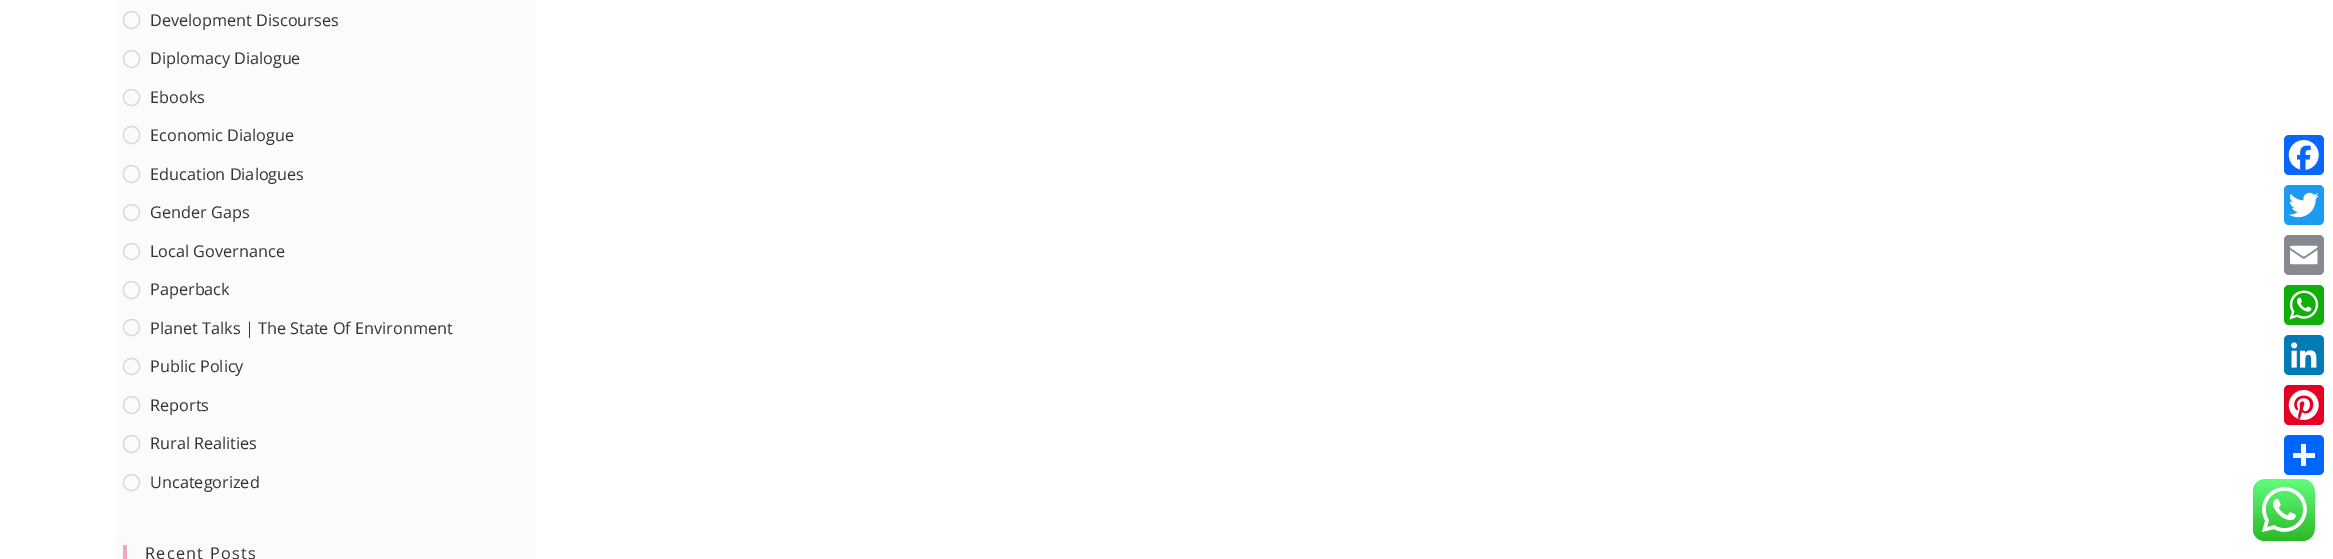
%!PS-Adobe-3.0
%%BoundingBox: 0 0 2333 559
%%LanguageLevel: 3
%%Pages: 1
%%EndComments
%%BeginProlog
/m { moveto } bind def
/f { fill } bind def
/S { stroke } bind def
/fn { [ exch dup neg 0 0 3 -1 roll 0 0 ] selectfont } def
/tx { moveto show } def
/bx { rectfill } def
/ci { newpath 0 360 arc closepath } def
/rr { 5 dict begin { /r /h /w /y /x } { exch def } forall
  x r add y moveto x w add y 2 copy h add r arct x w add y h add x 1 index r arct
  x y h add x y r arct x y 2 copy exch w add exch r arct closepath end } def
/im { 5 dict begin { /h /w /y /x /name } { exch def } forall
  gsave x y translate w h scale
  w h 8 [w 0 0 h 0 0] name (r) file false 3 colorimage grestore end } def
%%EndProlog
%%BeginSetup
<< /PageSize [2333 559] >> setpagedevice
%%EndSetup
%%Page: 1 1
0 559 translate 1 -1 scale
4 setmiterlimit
1 setgray
0 0 2333 559 bx
0.984 setgray
116 0 420 559 bx
0.835 setgray
123.5 11.5 16 17 8 rr S
/OpenSans-Regular 16.25 fn
0.2 setgray
(Development Discourses) 150 26 tx
0.835 setgray
123.5 50.5 16 17 8 rr S
0.2 setgray
(Diplomacy Dialogue) 150 64 tx
0.835 setgray
131.5 97.5 8 ci S
0.2 setgray
(Ebooks) 150 103 tx
0.835 setgray
123.5 126.5 16 17 8 rr S
0.2 setgray
(Economic Dialogue) 150 141 tx
0.835 setgray
123.5 165.5 16 17 8 rr S
0.2 setgray
(Education Dialogues) 150 180 tx
0.835 setgray
131.5 212.5 8 ci S
0.2 setgray
(Gender Gaps) 150 218 tx
0.835 setgray
131.5 251.5 8 ci S
0.2 setgray
(Local Governance) 150 257 tx
0.835 setgray
123.5 281.5 16 17 8 rr S
0.2 setgray
(Paperback) 150 295 tx
0.835 setgray
131.5 327.5 8 ci S
0.2 setgray
(Planet Talks | The State Of Environment) 150 334 tx
0.835 setgray
131.5 366.5 8 ci S
0.2 setgray
(Public Policy) 150 372 tx
0.835 setgray
123.5 396.5 16 17 8 rr S
0.2 setgray
(Reports) 150 411 tx
0.835 setgray
123.5 435.5 16 17 8 rr S
0.2 setgray
(Rural Realities) 150 449 tx
0.835 setgray
131.5 482.5 8 ci S
0.2 setgray
(Uncategorized) 150 488 tx
0.937 0.655 0.725 setrgbcolor
123 545 4 14 bx
0.2 setgray
145 559 m 1.25 0 (Recent Posts) ashow
0.031 0.4 1 setrgbcolor
2284 135 40 40 5 rr f
(image0.raw) 2288 140 31 30 im
0.114 0.608 0.941 setrgbcolor
2284 185 40 40 5 rr f
(image1.raw) 2289 192 30 26 im
0.533 0.537 0.565 setrgbcolor
2284 235 40 40 5 rr f
(image2.raw) 2290 245 28 20 im
0.071 0.686 0.039 setrgbcolor
2284 285 40 40 5 rr f
(image3.raw) 2289 290 30 30 im
0 0.482 0.71 setrgbcolor
2284 335 40 40 5 rr f
(image4.raw) 2291 342 26 26 im
0.902 0 0.137 setrgbcolor
2284 385 40 40 5 rr f
(image5.raw) 2288 390 31 30 im
0.004 0.4 1 setrgbcolor
2284 435 40 40 5 rr f
1 setgray
2301 444 5 22 bx
2293 453 22 5 bx
(image6.raw) 2253 479 62 62 im
showpage
%%EOF
